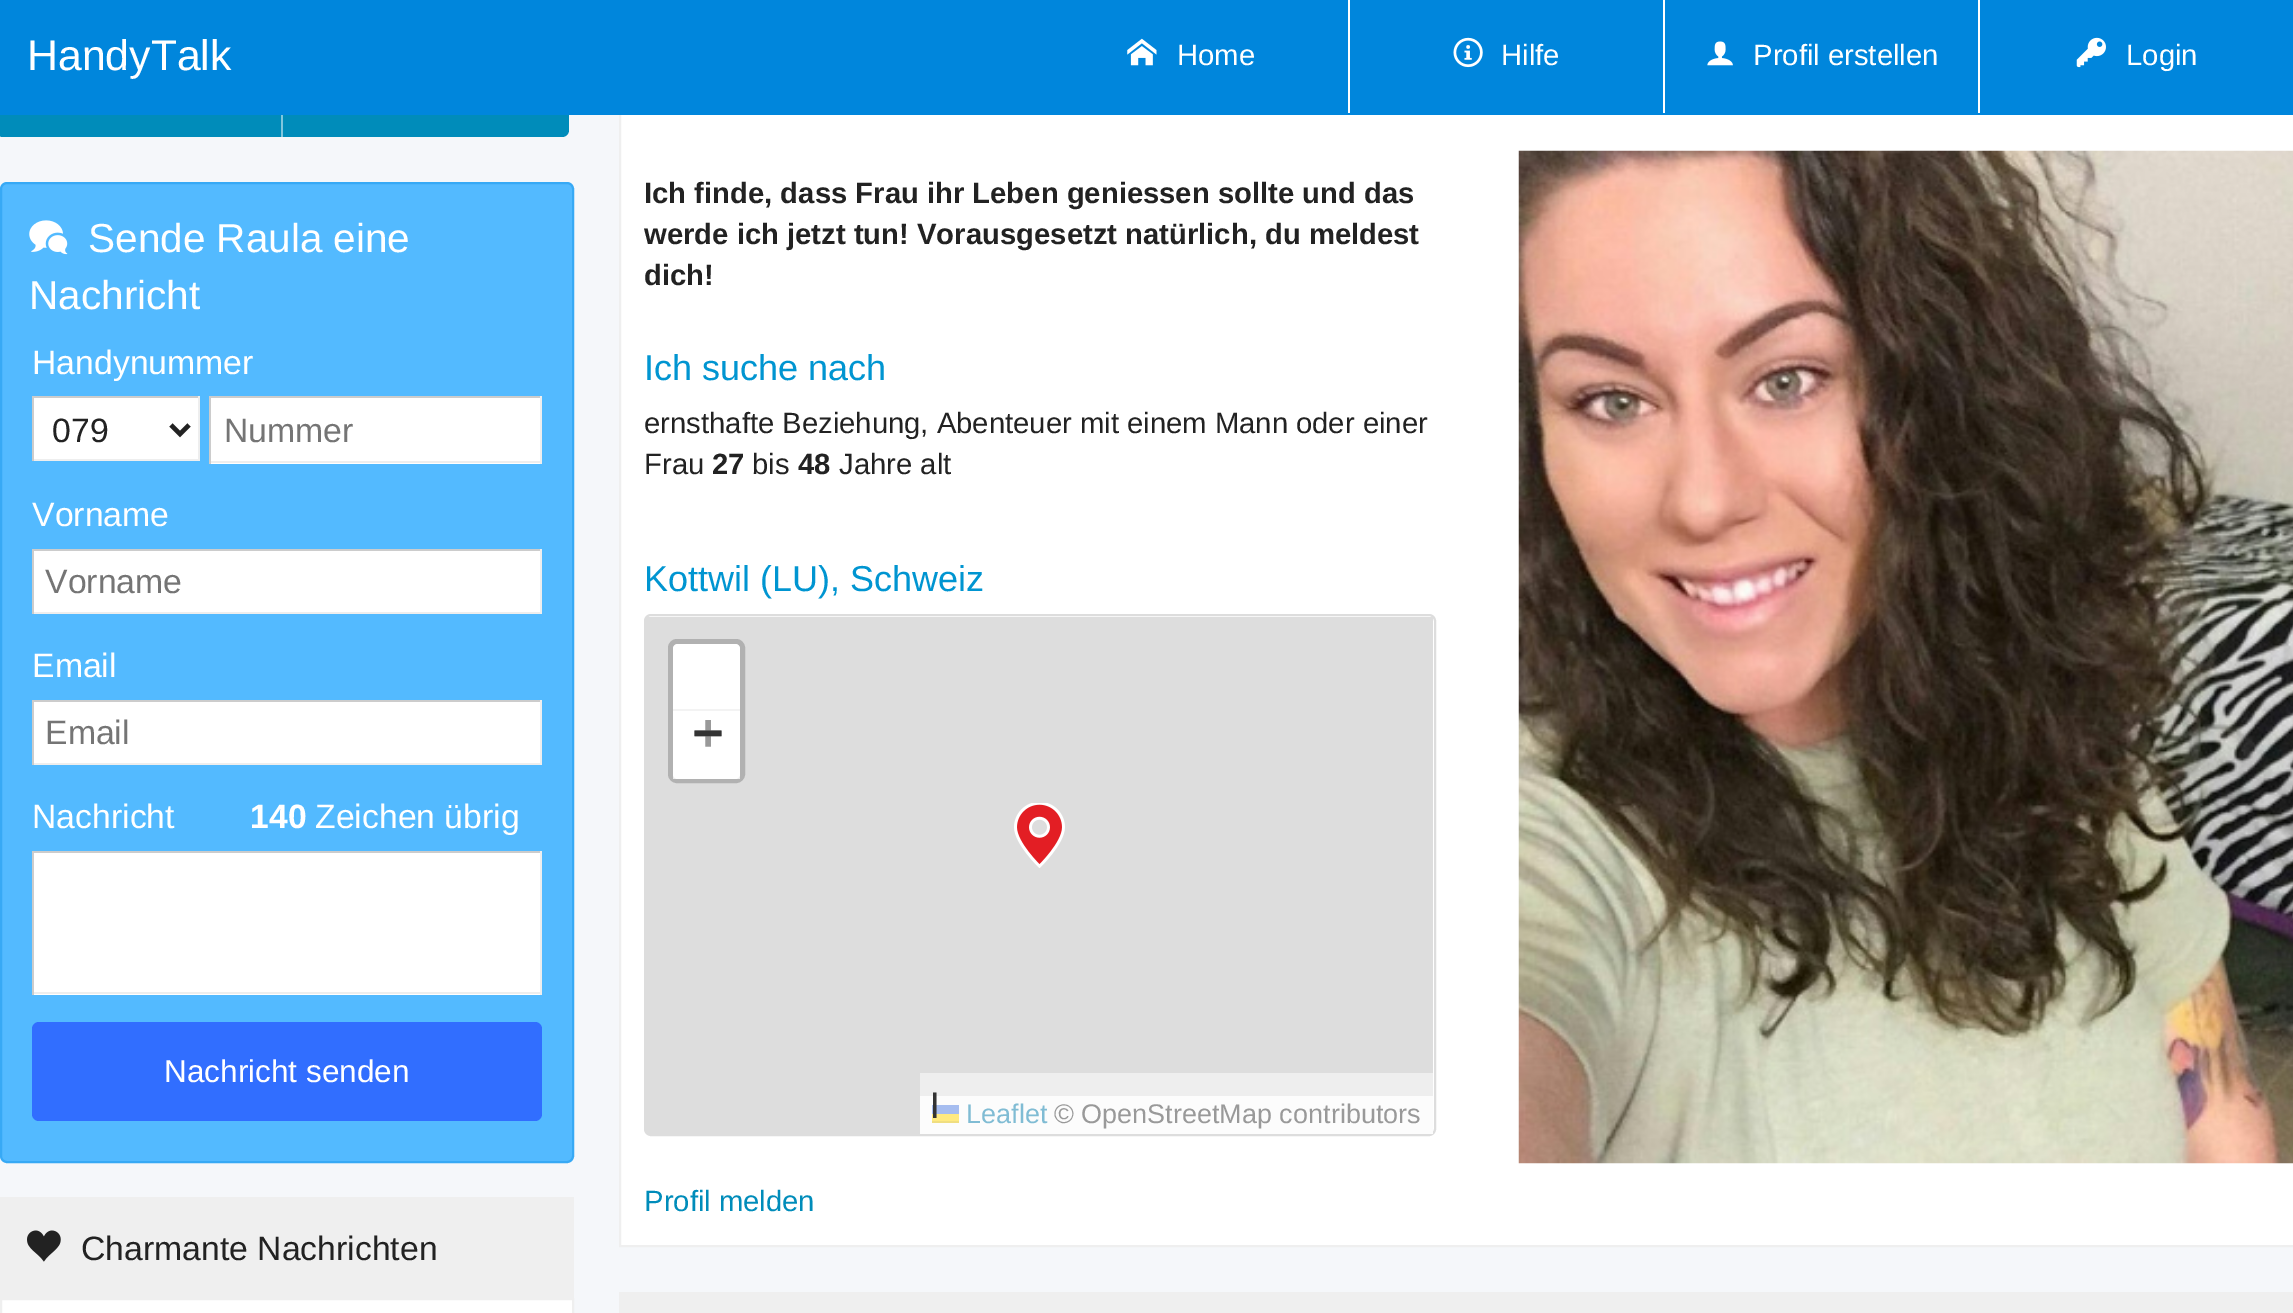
%!PS-Adobe-3.0
%%BoundingBox: 0 0 2293 1313
%%LanguageLevel: 3
%%Pages: 1
%%EndComments
%%BeginProlog
/m { moveto } bind def
/l { lineto } bind def
/c { curveto } bind def
/h { closepath } bind def
/f { fill } bind def
/S { stroke } bind def
/q { gsave } bind def
/Q { grestore } bind def
/w { setlinewidth } bind def
/fn { [ exch dup neg 0 0 3 -1 roll 0 0 ] selectfont } def
/tx { moveto show } def
/bx { rectfill } def
/al { dup .setfillconstantalpha .setstrokeconstantalpha } def
/rr { 5 dict begin { /r /h /w /y /x } { exch def } forall
  x r add y moveto x w add y 2 copy h add r arct x w add y h add x 1 index r arct
  x y h add x y r arct x y 2 copy exch w add exch r arct closepath end } def
/im { 5 dict begin { /h /w /y /x /name } { exch def } forall
  gsave x y translate w h scale
  w h 8 [w 0 0 h 0 0] name (r) file false 3 colorimage grestore end } def
%%EndProlog
%%BeginSetup
<< /PageSize [2293 1313] /PageUsesTransparency true >> setpagedevice
%%EndSetup
%%Page: 1 1
0 .pushpdf14devicefilter
0 1313 translate 1 -1 scale
4 setmiterlimit
0.961 0.969 0.98 setrgbcolor
0 0 2293 1313 bx
0 0.549 0.729 setrgbcolor
3 38 m 284 38 l 284 137 l 3 137 l -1 137 -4 134 -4 130 c -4 45 l -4 41 -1 38 3 38 c h f
281 38 m 562 38 l 566 38 569 41 569 45 c 569 130 l 569 134 566 137 562 137 c 281 137 l h f
1 setgray
621 115 1672 1130 bx
0.937 setgray
2 w
620 39 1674 1207 rectstroke
0 0.525 0.863 setrgbcolor
0 0 2293 115 bx
/LiberationSans-Regular 42.75 fn
1 setgray
(HandyTalk) 27 70 tx
1348 0 2 113 bx
(image0.raw) 1127 38 30 28 im
/LiberationSans-Regular 29.25 fn
(Home) 1177 65 tx
1663 0 2 113 bx
(image1.raw) 1453 37 30 31 im
(Hilfe) 1501 65 tx
1978 0 2 113 bx
(image2.raw) 1707 41 26 25 im
(Profil erstellen) 1753 65 tx
(image3.raw) 2076 37 30 31 im
(Login) 2126 65 tx
0.502 0.776 0.867 setrgbcolor
281 115 2 22 bx
0.325 0.729 1 setrgbcolor
1 183 572 979 6 rr q f Q
0.216 0.663 0.961 setrgbcolor
S
(image4.raw) 29 220 39 35 im
/LiberationSans-Regular 40.5 fn
1 setgray
(Sende Raula eine) 88 252 tx
(Nachricht) 29 309 tx
/LiberationSans-Regular 33.75 fn
(Handynummer) 32 374 tx
34 398 164 61 bx
0.8 setgray
32 396 168 2 bx
0.933 setgray
198 396 2 65 bx
32 459 168 2 bx
0.8 setgray
32 396 2 65 bx
0.133 setgray
4.5 w
171 425 m 180 434 l 189 425 l S
(079) 52 442 tx
1 setgray
211 398 329 66 bx
0.8 setgray
209 396 333 2 bx
0.933 setgray
540 396 2 68 bx
209 461 333 2 bx
0.8 setgray
209 396 2 68 bx
0.459 setgray
(Nummer) 224 442 tx
1 setgray
(Vorname) 32 526 tx
34 551 506 61 bx
0.8 setgray
32 549 510 2 bx
0.933 setgray
540 549 2 65 bx
32 612 510 2 bx
0.8 setgray
32 549 2 65 bx
0.459 setgray
(Vorname) 45 593 tx
1 setgray
(Email) 32 677 tx
34 702 506 61 bx
0.8 setgray
32 700 510 2 bx
0.933 setgray
540 700 2 65 bx
32 763 510 2 bx
0.8 setgray
32 700 2 65 bx
0.459 setgray
(Email) 45 744 tx
1 setgray
(Nachricht) 32 828 tx
/LiberationSans-Bold 33.75 fn
(140) 250 828 tx
/LiberationSans-Regular 33.75 fn
(Zeichen übrig) 315 828 tx
34 853 506 142 bx
0.8 setgray
32 851 510 2 bx
0.933 setgray
540 851 2 144 bx
32 992 510 2 bx
0.8 setgray
32 851 2 144 bx
0.192 0.431 1 setrgbcolor
32 1022 510 99 7 rr f
/LiberationSans-Regular 31.5 fn
1 setgray
(Nachricht senden) 164 1082 tx
0.937 setgray
0 1197 574 101 bx
(image5.raw) 27 1230 34 32 im
/LiberationSans-Regular 33.75 fn
0.133 setgray
(Charmante Nachrichten) 81 1260 tx
1 setgray
1 1299 m 573 1299 l 573 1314 l 1 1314 l h q f Q
0.937 setgray
2 w
S
/LiberationSans-Bold 29.25 fn
0.133 setgray
(Ich finde, dass Frau ihr Leben geniessen sollte und das) 644 203 tx
(werde ich jetzt tun! Vorausgesetzt natürlich, du meldest) 644 244 tx
(dich!) 644 285 tx
/LiberationSans-Regular 36 fn
0 0.584 0.82 setrgbcolor
(Ich suche nach) 644 380 tx
/LiberationSans-Regular 29.25 fn
0.133 setgray
(ernsthafte Beziehung, Abenteuer mit einem Mann oder einer) 644 433 tx
(Frau) 644 474 tx
/LiberationSans-Bold 29.25 fn
(27) 712 474 tx
/LiberationSans-Regular 29.25 fn
(bis) 752 474 tx
/LiberationSans-Bold 29.25 fn
(48) 798 474 tx
/LiberationSans-Regular 29.25 fn
(Jahre alt) 839 474 tx
/LiberationSans-Regular 36 fn
0 0.584 0.82 setrgbcolor
(Kottwil \(LU\), Schweiz) 644 591 tx
0.867 setgray
645 615 790 520 6 rr S
646 617 787 517 bx
0.694 setgray
5 w
670.5 641.5 72 139 6.5 rr S
1 setgray
678 644 m 735 644 l 738 644 740 646 740 649 c 740 711 l 673 711 l 673 649 l 673 646 675 644 678 644 c h f
0.8 setgray
673 709 67 2 bx
1 setgray
673 711 m 740 711 l 740 774 l 740 777 738 779 735 779 c 678 779 l 675 779 673 777 673 774 c h f
0.5 al
673 709 67 70 bx
/DejaVuSansMono-Bold 50 fn
1 al
0.2 setgray
(+) 693 749 tx
0.5 al
1 setgray
673 709 67 70 bx
1 al
0.2 setgray
(−) 693 749 tx
0.973 setgray
920 1096 513 38 bx
/LiberationSans-Regular 27 fn
0 0.471 0.659 setrgbcolor
(Leaflet) 966 1123 tx
0.298 0.482 0.882 setrgbcolor
932 1105 27 9 bx
1 0.835 0 setrgbcolor
932 1114 27 7 bx
0.878 0.737 0 setrgbcolor
932 1121 27 2 bx
0.2 setgray
(© OpenStreetMap contributors) 1054 1123 tx
0.5 al
1 setgray
920 1073 513 61 bx
/LiberationSans-Bold 27 fn
1 al
0.2 setgray
(|) 931 1112 tx
(image6.raw) 1014 803 51 65 im
/LiberationSans-Regular 29.25 fn
0 0.549 0.729 setrgbcolor
(Profil melden) 644 1211 tx
(image7.raw) 1518 150 775 1014 im
0.937 setgray
619 1292 1674 21 bx
.poppdf14devicefilter showpage
%%EOF
